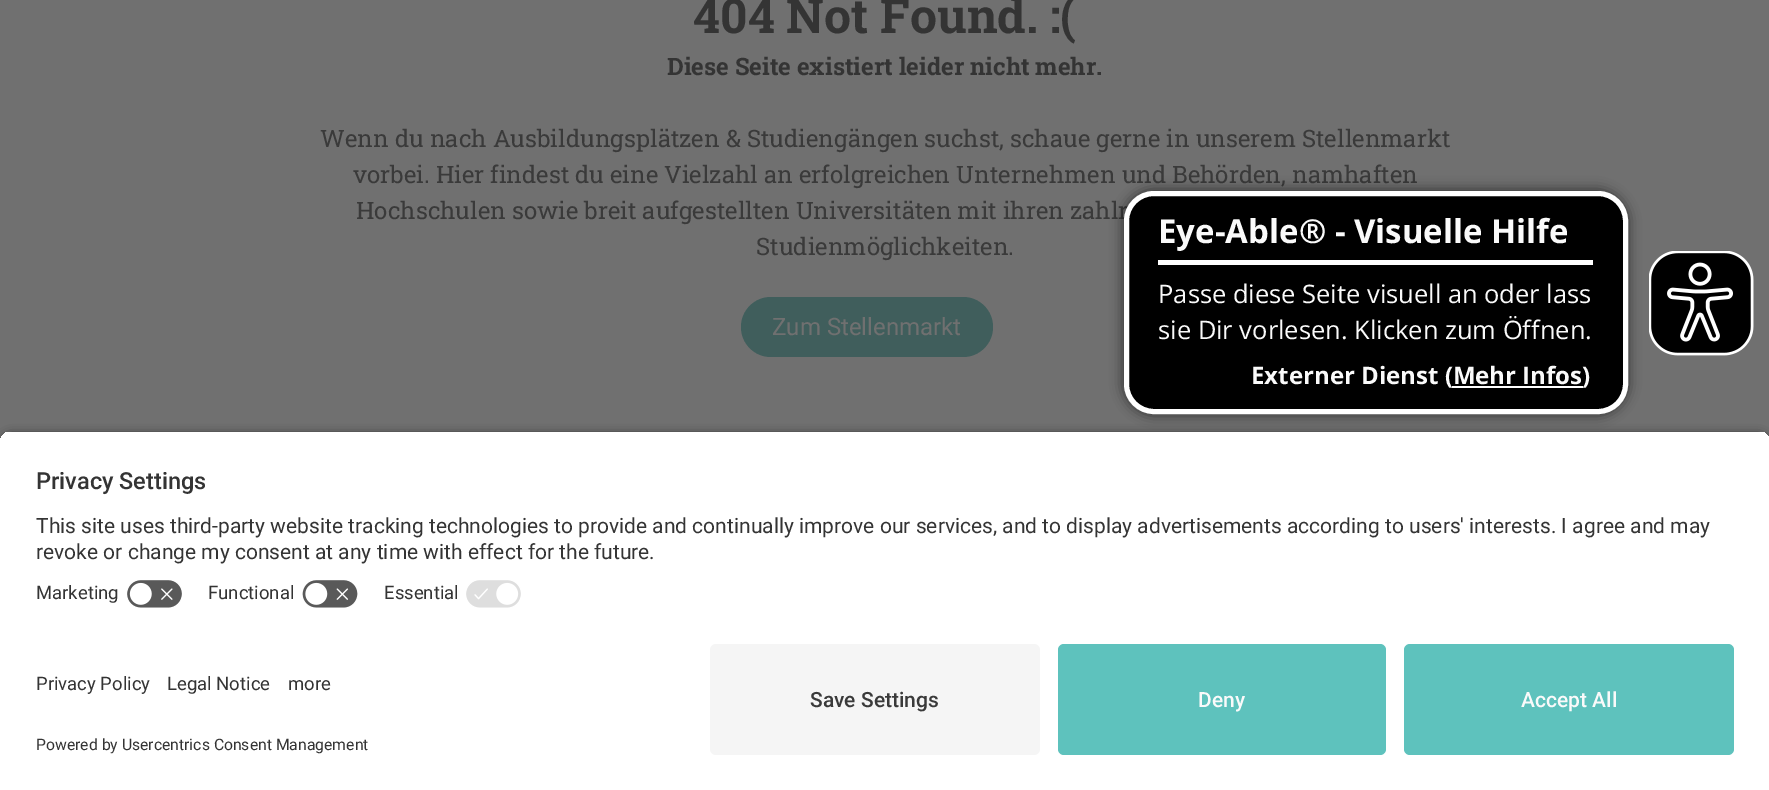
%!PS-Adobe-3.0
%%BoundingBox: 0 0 1769 790
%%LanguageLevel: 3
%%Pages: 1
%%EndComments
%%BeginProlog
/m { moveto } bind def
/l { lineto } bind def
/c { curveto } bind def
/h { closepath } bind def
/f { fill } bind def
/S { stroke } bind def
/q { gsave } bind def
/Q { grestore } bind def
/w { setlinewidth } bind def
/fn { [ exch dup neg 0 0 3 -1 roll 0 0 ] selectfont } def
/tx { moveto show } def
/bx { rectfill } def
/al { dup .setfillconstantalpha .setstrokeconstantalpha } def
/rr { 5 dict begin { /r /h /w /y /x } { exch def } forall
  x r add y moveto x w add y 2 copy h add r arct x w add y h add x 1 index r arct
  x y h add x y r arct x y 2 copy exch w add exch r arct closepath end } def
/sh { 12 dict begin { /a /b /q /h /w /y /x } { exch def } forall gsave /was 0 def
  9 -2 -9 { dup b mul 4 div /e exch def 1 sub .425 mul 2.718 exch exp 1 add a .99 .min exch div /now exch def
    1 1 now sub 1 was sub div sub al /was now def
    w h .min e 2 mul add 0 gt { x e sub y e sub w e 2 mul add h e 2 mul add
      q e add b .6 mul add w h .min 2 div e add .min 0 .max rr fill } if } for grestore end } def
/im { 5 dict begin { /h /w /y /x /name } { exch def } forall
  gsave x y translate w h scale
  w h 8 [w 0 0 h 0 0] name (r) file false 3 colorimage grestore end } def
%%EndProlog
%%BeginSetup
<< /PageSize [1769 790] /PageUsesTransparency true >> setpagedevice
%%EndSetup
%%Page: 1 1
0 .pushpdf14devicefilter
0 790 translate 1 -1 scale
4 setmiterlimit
0.439 setgray
0 0 1769 790 bx
/RobotoSlab-Bold 48 fn
0.204 setgray
(404 Not Found. :\() 693 33 tx
/RobotoSlab-Bold 24 fn
(Diese Seite existiert leider nicht mehr.) 667 75 tx
/RobotoSlab-Regular 24 fn
0.227 setgray
(Wenn du nach Ausbildungsplätzen & Studiengängen suchst, schaue gerne in unserem Stellenmarkt) 320 147 tx
(vorbei. Hier findest du eine Vielzahl an erfolgreichen Unternehmen und Behörden, namhaften) 353 183 tx
(Hochschulen sowie breit aufgestellten Universitäten mit ihren zahlr) 356 219 tx
(Studienmöglichkeiten.) 756 255 tx
0.251 0.369 0.361 setrgbcolor
741 297 252 60 30 rr f
/Roboto-Regular 24 fn
0.439 setgray
(Zum Stellenmarkt) 772 335 tx
0 setgray
0 435 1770 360 12 5 0.8 sh
q
12 431 m 1758 431 l 1764.5 431 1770 436.5 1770 443 c 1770 632 l 0 632 l 0 443 l 0 436.5 5.5 431 12 431 c h clip newpath
1 setgray
0 432 1769 200 bx
0 432 1769 140 bx
Q
1122 189 507 227 32 6 0.5 sh
1126.5 193.5 499 218 27.5 rr q f Q
1 setgray
5 w
S
1158 260 435 5 bx
/OpenSans-Bold 33 fn
0.98 setgray
(Eye-Able® - Visuelle Hilfe) 1158 243 tx
/OpenSans-Regular 25.5 fn
(Passe diese Seite visuell an oder lass) 1158 303 tx
(sie Dir vorlesen. Klicken zum Öffnen.) 1158 339 tx
/OpenSans-Bold 24 fn
(Externer Dienst \(Mehr Infos) 1251 384 tx
1 setgray
1452 386 131 2 bx
0.98 setgray
(\)) 1582 384 tx
(image0.raw) 1649 251 105 105 im
/Roboto-Medium 23.5 fn
0.204 setgray
(Privacy Settings) 36 489 tx
/Roboto-Regular 21 fn
(This site uses third-party website tracking technologies to provide and continually improve our services, and to display advertisements according to users' interests. I agree and may) 36 533 tx
(revoke or change my consent at any time with effect for the future.) 36 559 tx
/Roboto-Regular 18.5 fn
(Marketing) 36 599 tx
(image1.raw) 127 580 55 28 im
(Functional) 208 599 tx
(image2.raw) 302 580 56 28 im
(Essential) 384 599 tx
(image3.raw) 466 580 55 28 im
1 setgray
0 632 1769 158 bx
0.204 setgray
(Privacy Policy) 36 690 tx
(Legal Notice) 167 690 tx
(more) 288 690 tx
/Roboto-Regular 15.75 fn
(Powered by Usercentrics Consent Management) 36 750 tx
0.961 setgray
710 644 330 111 6 rr f
/Roboto-Medium 21 fn
0.227 setgray
(Save Settings) 810 707 tx
0.369 0.761 0.741 setrgbcolor
1058 644 328 111 6 rr f
0.98 setgray
(Deny) 1198 707 tx
0.369 0.761 0.741 setrgbcolor
1404 644 330 111 6 rr f
0.98 setgray
(Accept All) 1521 707 tx
.poppdf14devicefilter showpage
%%EOF
